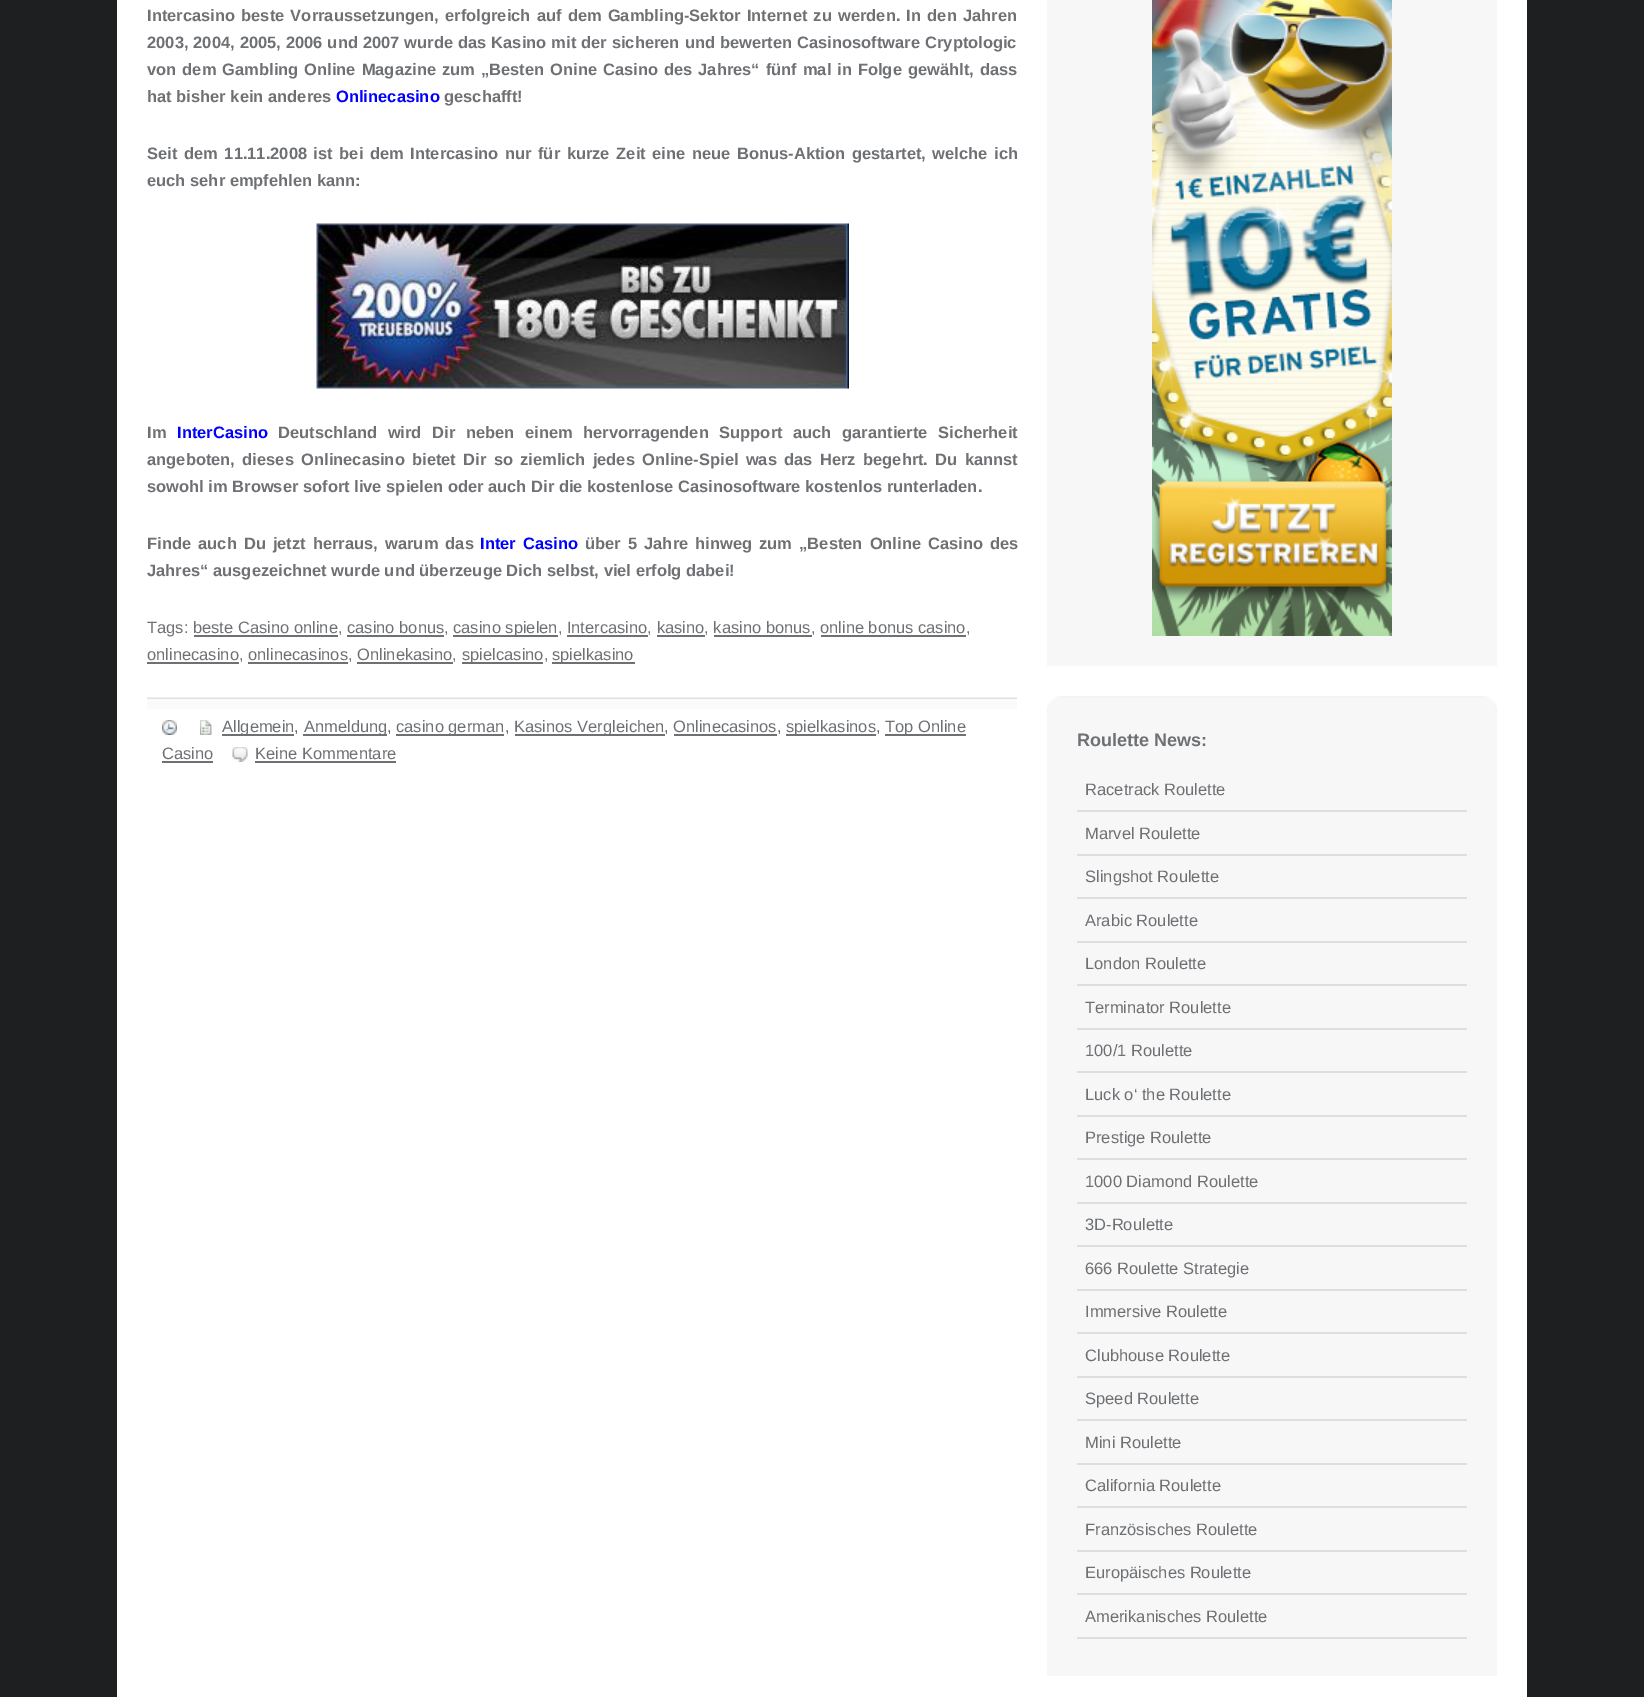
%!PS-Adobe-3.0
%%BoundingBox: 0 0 1644 1697
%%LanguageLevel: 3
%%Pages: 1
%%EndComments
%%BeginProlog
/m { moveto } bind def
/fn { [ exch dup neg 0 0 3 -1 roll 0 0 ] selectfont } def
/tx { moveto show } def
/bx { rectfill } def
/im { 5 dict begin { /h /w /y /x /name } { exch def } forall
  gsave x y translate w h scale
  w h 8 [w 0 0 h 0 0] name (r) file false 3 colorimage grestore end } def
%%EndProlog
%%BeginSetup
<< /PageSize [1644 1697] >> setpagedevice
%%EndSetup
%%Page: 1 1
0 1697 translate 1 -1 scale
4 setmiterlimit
0.118 0.122 0.129 setrgbcolor
0 0 1644 1697 bx
1 setgray
117 0 1410 1697 bx
/LiberationSans-Bold 16.5 fn
0.431 0.439 0.451 setrgbcolor
147 21 m 1.6 0 32 (Intercasino beste Vorraussetzungen, erfolgreich auf dem Gambling-Sektor Internet zu werden. In den Jahren) widthshow
147 48 m 0.4 0 32 (2003, 2004, 2005, 2006 und 2007 wurde das Kasino mit der sicheren und bewerten Casinosoftware Cryptologic) widthshow
147 75 m 1.4 0 32 (von dem Gambling Online Magazine zum „Besten Onine Casino des Jahres“ fünf mal in Folge gewählt, dass) widthshow
(hat bisher kein anderes) 147 102 tx
0 0 1 setrgbcolor
(Onlinecasino) 336 102 tx
0.431 0.439 0.451 setrgbcolor
(geschafft!) 444 102 tx
147 159 m 2 0 32 (Seit dem 11.11.2008 ist bei dem Intercasino nur für kurze Zeit eine neue Bonus-Aktion gestartet, welche ich) widthshow
(euch sehr empfehlen kann:) 147 186 tx
(image0.raw) 316 223 533 166 im
(Im) 147 438 tx
0 0 1 setrgbcolor
(InterCasino) 177 438 tx
0.431 0.439 0.451 setrgbcolor
278 438 m 6 0 32 (Deutschland wird Dir neben einem hervorragenden Support auch garantierte Sicherheit) widthshow
147 465 m 2.75 0 32 (angeboten, dieses Onlinecasino bietet Dir so ziemlich jedes Online-Spiel was das Herz begehrt. Du kannst) widthshow
(sowohl im Browser sofort live spielen oder auch Dir die kostenlose Casinosoftware kostenlos runterladen.) 147 492 tx
147 549 m 2.5 0 32 (Finde auch Du jetzt herraus, warum das) widthshow
0 0 1 setrgbcolor
480 549 m 2.5 0 32 (Inter Casino) widthshow
0.431 0.439 0.451 setrgbcolor
585 549 m 2.5 0 32 (über 5 Jahre hinweg zum „Besten Online Casino des) widthshow
(Jahres“ ausgezeichnet wurde und überzeuge Dich selbst, viel erfolg dabei!) 147 576 tx
/LiberationSans-Regular 16.5 fn
(Tags: beste Casino online, casino bonus,) 147 633 tx
453 635 105 2 bx
(casino spielen, Intercasino, kasino, kasino bonus, online bonus casino,) 453 633 tx
194 635 144 2 bx
347 635 97 2 bx
567 635 81 2 bx
657 635 48 2 bx
714 635 98 2 bx
821 635 145 2 bx
147 662 92 2 bx
(onlinecasino, onlinecasinos, Onlinekasino,) 147 660 tx
462 662 81 2 bx
(spielcasino,) 462 660 tx
552 662 83 2 bx
(spielkasino) 552 660 tx
248 662 100 2 bx
357 662 96 2 bx
(image1.raw) 147 697 870 12 im
(image2.raw) 162 720 15 15 im
(image3.raw) 200 720 12 15 im
222 734 72 2 bx
(Allgemein) 222 732 tx
0.369 setgray
(,) 294 732 tx
0.431 0.439 0.451 setrgbcolor
303 734 84 2 bx
(Anmeldung) 304 732 tx
0.369 setgray
(,) 387 732 tx
0.431 0.439 0.451 setrgbcolor
396 734 108 2 bx
(casino german) 396 732 tx
0.369 setgray
(,) 505 732 tx
0.431 0.439 0.451 setrgbcolor
515 734 150 2 bx
(Kasinos Vergleichen) 514 732 tx
0.369 setgray
(,) 664 732 tx
0.431 0.439 0.451 setrgbcolor
(Onlinecasinos) 673 732 tx
0.369 setgray
(,) 777 732 tx
0.431 0.439 0.451 setrgbcolor
674 734 103 2 bx
786 734 90 2 bx
(spielkasinos) 786 732 tx
0.369 setgray
(,) 876 732 tx
0.431 0.439 0.451 setrgbcolor
885 734 81 2 bx
(Top Online) 885 732 tx
(Casino) 162 759 tx
162 761 51 2 bx
(image4.raw) 232 747 16 15 im
(Keine Kommentare) 255 759 tx
255 761 141 2 bx
0.969 setgray
1047 0 450 666 bx
(image5.raw) 1152 0 240 636 im
1047 711 450 965 bx
(image6.raw) 1047 696 450 15 im
/LiberationSans-Bold 18 fn
0.431 0.439 0.451 setrgbcolor
(Roulette News:) 1077 746 tx
0.871 setgray
1077 810 390 2 bx
/LiberationSans-Regular 16.5 fn
0.431 0.439 0.451 setrgbcolor
(Racetrack Roulette) 1085 795 tx
0.871 setgray
1077 854 390 2 bx
0.431 0.439 0.451 setrgbcolor
(Marvel Roulette) 1085 839 tx
0.871 setgray
1077 897 390 2 bx
0.431 0.439 0.451 setrgbcolor
(Slingshot Roulette) 1085 882 tx
0.871 setgray
1077 941 390 2 bx
0.431 0.439 0.451 setrgbcolor
(Arabic Roulette) 1085 926 tx
0.871 setgray
1077 984 390 2 bx
0.431 0.439 0.451 setrgbcolor
(London Roulette) 1085 969 tx
0.871 setgray
1077 1028 390 2 bx
0.431 0.439 0.451 setrgbcolor
(Terminator Roulette) 1085 1013 tx
0.871 setgray
1077 1071 390 2 bx
0.431 0.439 0.451 setrgbcolor
(100/1 Roulette) 1085 1056 tx
0.871 setgray
1077 1115 390 2 bx
0.431 0.439 0.451 setrgbcolor
(Luck o‘ the Roulette) 1085 1100 tx
0.871 setgray
1077 1158 390 2 bx
0.431 0.439 0.451 setrgbcolor
(Prestige Roulette) 1085 1143 tx
0.871 setgray
1077 1202 390 2 bx
0.431 0.439 0.451 setrgbcolor
(1000 Diamond Roulette) 1085 1187 tx
0.871 setgray
1077 1245 390 2 bx
0.431 0.439 0.451 setrgbcolor
(3D-Roulette) 1085 1230 tx
0.871 setgray
1077 1289 390 2 bx
0.431 0.439 0.451 setrgbcolor
(666 Roulette Strategie) 1085 1274 tx
0.871 setgray
1077 1332 390 2 bx
0.431 0.439 0.451 setrgbcolor
(Immersive Roulette) 1085 1317 tx
0.871 setgray
1077 1376 390 2 bx
0.431 0.439 0.451 setrgbcolor
(Clubhouse Roulette) 1085 1361 tx
0.871 setgray
1077 1419 390 2 bx
0.431 0.439 0.451 setrgbcolor
(Speed Roulette) 1085 1404 tx
0.871 setgray
1077 1463 390 2 bx
0.431 0.439 0.451 setrgbcolor
(Mini Roulette) 1085 1448 tx
0.871 setgray
1077 1506 390 2 bx
0.431 0.439 0.451 setrgbcolor
(California Roulette) 1085 1491 tx
0.871 setgray
1077 1550 390 2 bx
0.431 0.439 0.451 setrgbcolor
(Französisches Roulette) 1085 1535 tx
0.871 setgray
1077 1593 390 2 bx
0.431 0.439 0.451 setrgbcolor
(Europäisches Roulette) 1085 1578 tx
0.871 setgray
1077 1637 390 2 bx
0.431 0.439 0.451 setrgbcolor
(Amerikanisches Roulette) 1085 1622 tx
showpage
%%EOF
